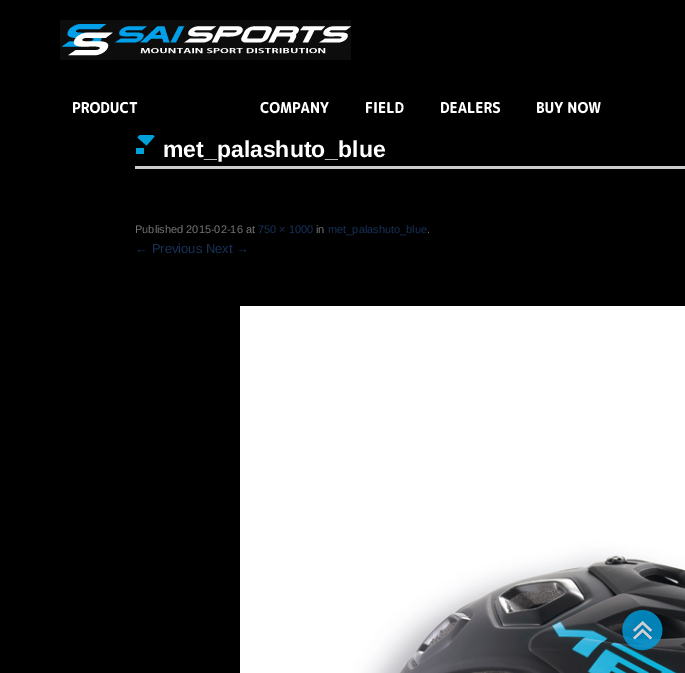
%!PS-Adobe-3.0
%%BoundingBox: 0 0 685 673
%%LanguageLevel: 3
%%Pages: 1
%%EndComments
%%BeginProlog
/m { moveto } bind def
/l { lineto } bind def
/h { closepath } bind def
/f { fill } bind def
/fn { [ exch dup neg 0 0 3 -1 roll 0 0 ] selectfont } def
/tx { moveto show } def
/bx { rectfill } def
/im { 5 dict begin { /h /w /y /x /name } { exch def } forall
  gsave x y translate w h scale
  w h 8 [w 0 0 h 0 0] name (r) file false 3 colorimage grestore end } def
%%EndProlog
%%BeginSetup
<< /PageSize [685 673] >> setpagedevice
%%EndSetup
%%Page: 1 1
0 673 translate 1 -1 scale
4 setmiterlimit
0 setgray
0 0 685 673 bx
0 0.635 0.851 setrgbcolor
137.5 137.5 m 145.5 128.5 l 154.5 136.5 l 146.5 145.5 l h f
0 setgray
139 128 14 7 bx
(image0.raw) 60 20 291 40 im
(image1.raw) 73 102 65 12 im
(image2.raw) 260 102 69 12 im
(image3.raw) 366 102 38 11 im
(image4.raw) 441 102 59 12 im
(image5.raw) 537 102 64 12 im
0.8 setgray
135 166 550 3 bx
0 0.635 0.851 setrgbcolor
136 148 8 6 bx
/LiberationSans-Bold 23 fn
1 setgray
(met_palashuto_blue) 163 157 tx
/LiberationSans-Regular 11 fn
0.459 setgray
(Published 2015-02-16 at) 135 233 tx
0.094 0.192 0.345 setrgbcolor
(750 × 1000) 258 233 tx
0.459 setgray
(in) 316 233 tx
0.094 0.192 0.345 setrgbcolor
(met_palashuto_blue) 328 233 tx
0.459 setgray
(.) 427 233 tx
/LiberationSans-Regular 13 fn
0.094 0.192 0.345 setrgbcolor
(← Previous Next →) 135 253 tx
(image6.raw) 240 306 445 367 im
(image7.raw) 622 610 41 41 im
showpage
%%EOF
